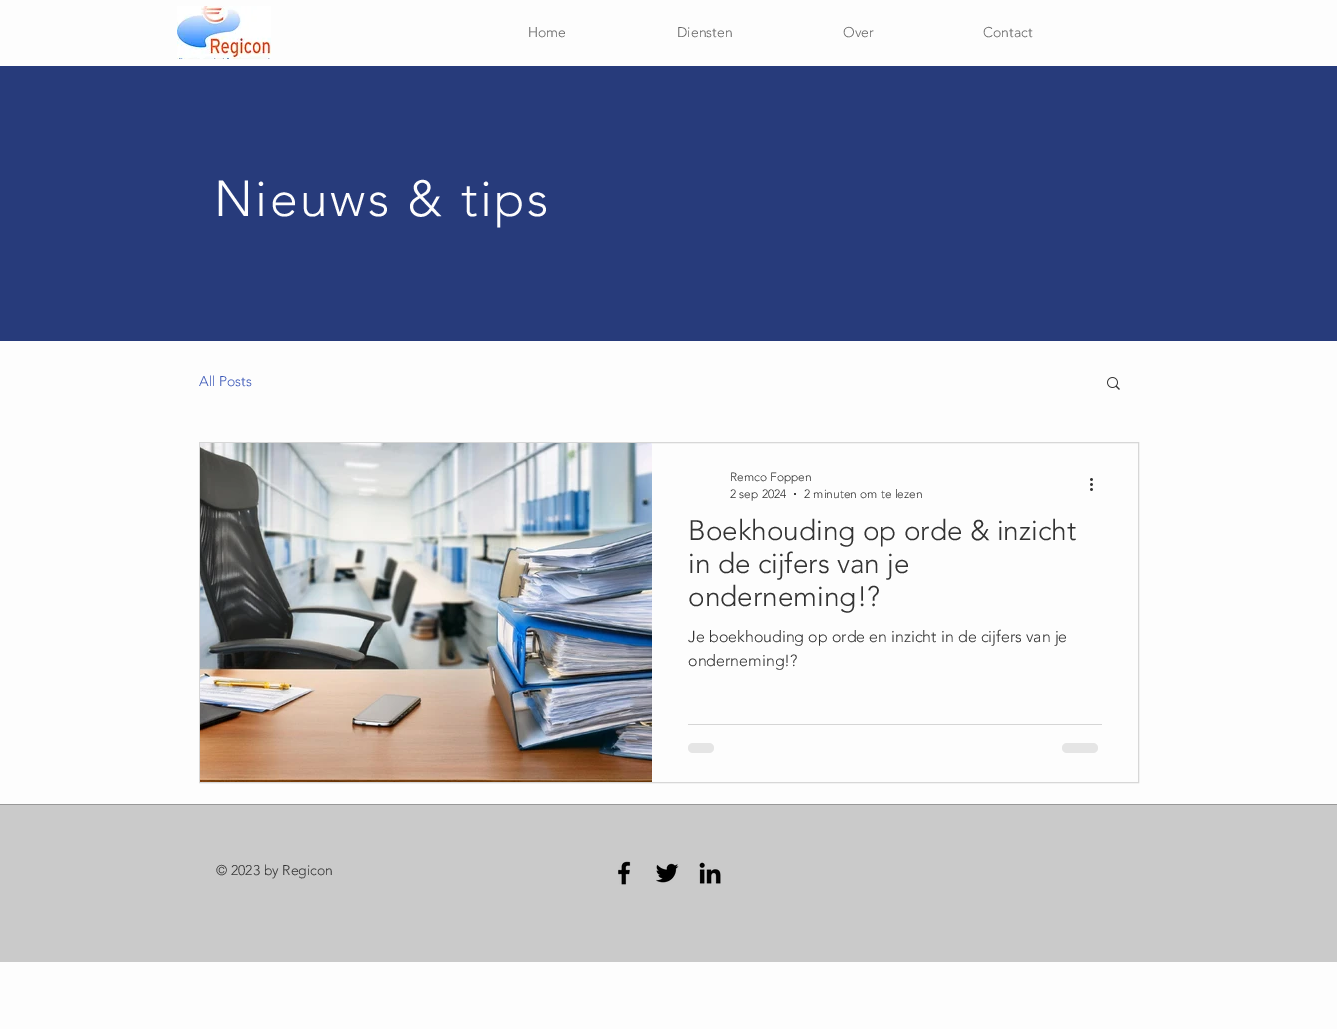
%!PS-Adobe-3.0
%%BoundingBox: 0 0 1337 1029
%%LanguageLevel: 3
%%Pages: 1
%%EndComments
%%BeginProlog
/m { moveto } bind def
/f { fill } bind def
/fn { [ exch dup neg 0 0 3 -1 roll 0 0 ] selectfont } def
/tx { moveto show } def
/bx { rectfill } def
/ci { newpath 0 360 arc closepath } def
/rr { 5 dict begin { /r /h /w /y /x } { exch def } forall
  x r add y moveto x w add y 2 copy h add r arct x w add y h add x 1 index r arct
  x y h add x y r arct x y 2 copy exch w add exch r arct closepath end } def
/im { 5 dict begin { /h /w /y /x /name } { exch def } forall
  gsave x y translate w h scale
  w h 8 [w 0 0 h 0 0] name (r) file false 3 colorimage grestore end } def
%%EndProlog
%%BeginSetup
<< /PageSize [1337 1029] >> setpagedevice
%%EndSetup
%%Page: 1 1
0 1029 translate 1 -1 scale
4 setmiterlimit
0.992 setgray
0 0 1337 1029 bx
(image0.raw) 177 6 94 53 im
/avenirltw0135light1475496-Light 14 fn
0.396 setgray
(Home) 528 37 tx
(Diensten) 677 37 tx
(Over) 843 37 tx
(Contact) 983 37 tx
0.153 0.231 0.482 setrgbcolor
0 66 1337 275 bx
/avenirltw0135light1475496-Light 50 fn
0.992 setgray
214 216 m 2.5 0 (Nieuws & tips) ashow
/avenirltw0135light1475496-Light 14 fn
0.231 0.345 0.722 setrgbcolor
(All Posts) 199 386 tx
(image1.raw) 1107 377 13 13 im
0.843 setgray
199.5 442.5 939 340 rectstroke
(image2.raw) 200 443 452 339 im
/avenirltw0135light1475496-Light 12 fn
0.2 setgray
(Remco Foppen) 730 481 tx
(2 sep 2024) 730 498 tx
795 494 1 ci f
(2 minuten om te lezen) 804 498 tx
(image3.raw) 1090 478 3 13 im
/avenirltw0135light1475496-Light 28 fn
(Boekhouding op orde & inzicht) 688 540 tx
(in de cijfers van je) 688 573 tx
(onderneming!?) 688 606 tx
/avenirltw0135light1475496-Light 16 fn
(Je boekhouding op orde en inzicht in de cijfers van je) 688 642 tx
(onderneming!?) 688 666 tx
0.835 setgray
688 724 414 1 bx
0.898 setgray
688 743 26 10 5 rr f
1062 743 36 10 5 rr f
0.792 setgray
0 805 1337 157 bx
0.596 setgray
0 804 1337 1 bx
/avenirltw0135light1475496-Light 14 fn
0.2 setgray
(© 2023 by Regicon) 216 875 tx
(image4.raw) 618 861 13 24 im
(image5.raw) 656 863 23 20 im
(image6.raw) 699 862 22 22 im
showpage
%%EOF
